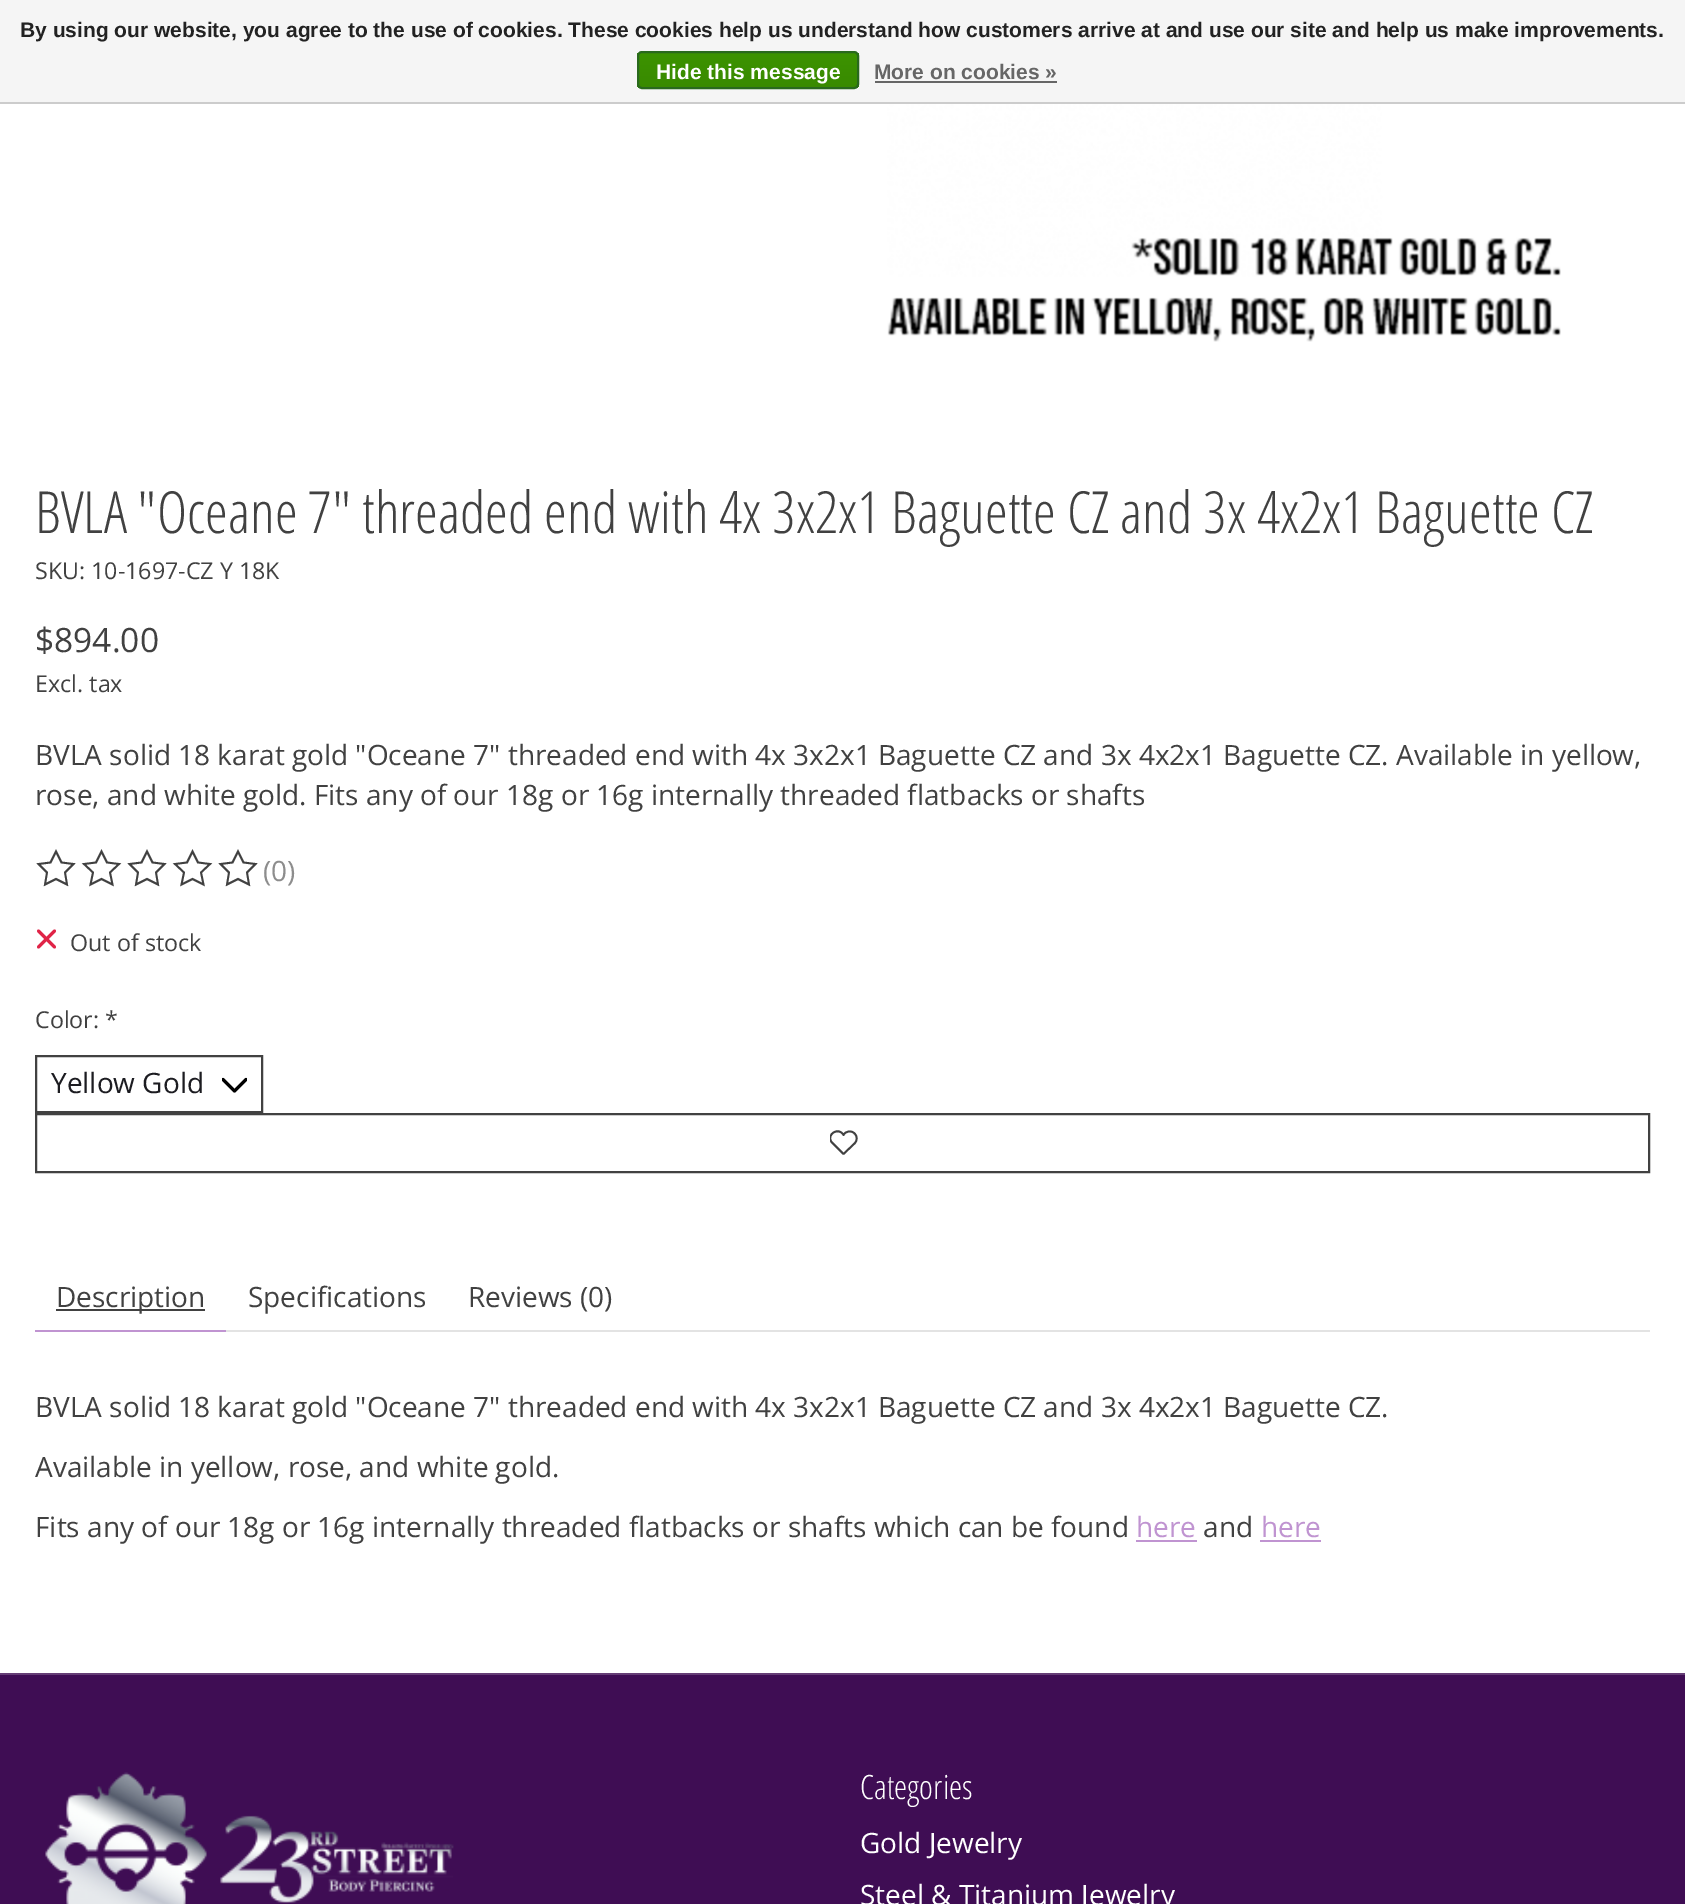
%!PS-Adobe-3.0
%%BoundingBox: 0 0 1685 1904
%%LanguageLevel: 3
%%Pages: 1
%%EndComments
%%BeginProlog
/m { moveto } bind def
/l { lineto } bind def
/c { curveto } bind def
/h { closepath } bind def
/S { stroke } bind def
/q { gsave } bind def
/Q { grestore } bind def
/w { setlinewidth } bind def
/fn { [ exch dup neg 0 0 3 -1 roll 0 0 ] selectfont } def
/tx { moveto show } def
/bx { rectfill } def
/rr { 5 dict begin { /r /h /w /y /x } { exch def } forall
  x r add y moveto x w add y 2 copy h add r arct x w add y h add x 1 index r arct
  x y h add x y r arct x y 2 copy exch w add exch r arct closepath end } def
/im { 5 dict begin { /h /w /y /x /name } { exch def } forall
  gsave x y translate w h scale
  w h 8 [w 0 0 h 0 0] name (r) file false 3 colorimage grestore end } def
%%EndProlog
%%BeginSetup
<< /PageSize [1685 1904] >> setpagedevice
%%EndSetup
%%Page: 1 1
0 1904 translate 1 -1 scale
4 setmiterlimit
1 setgray
0 0 1685 1904 bx
0.961 setgray
0 0 1685 102 bx
0.8 setgray
0 102 1685 2 bx
/LiberationSans-Bold 21 fn
0.133 setgray
(By using our website, you agree to the use of cookies. These cookies help us understand how customers arrive at and use our site and help us make improvements.) 20 37 tx
q
637 51 222 38 5 rr clip newpath
q 637 53 m 859 53 l 859 88 l 637 88 l h clip newpath
<< /ShadingType 2 /ColorSpace /DeviceRGB /Coords [748 52 748 88] /Extend [true true] /Function << /FunctionType 2 /Domain [0 1] /C0 [0.235 0.576 0] /C1 [0.224 0.541 0] /N 1 >> >> shfill Q
Q
0.161 0.412 0.114 setrgbcolor
2 w
638 52 220 36 4 rr S
1 setgray
(Hide this message) 656 79 tx
0.4 setgray
(More on cookies ») 874 79 tx
875 81 182 2 bx
(image0.raw) 887 104 674 238 im
/OpenSansCondensed-Light 58.05 fn
0.255 setgray
(BVLA "Oceane 7" threaded end with 4x 3x2x1 Baguette CZ and 3x 4x2x1 Baguette CZ) 35 533 tx
/OpenSans-Regular 23.25 fn
(SKU: 10-1697-CZ Y 18K) 35 579 tx
/OpenSans-Regular 33.5 fn
($894.00) 35 652 tx
/OpenSans-Regular 23.25 fn
(Excl. tax) 35 692 tx
/OpenSans-Regular 28 fn
(BVLA solid 18 karat gold "Oceane 7" threaded end with 4x 3x2x1 Baguette CZ and 3x 4x2x1 Baguette CZ. Available in yellow,) 35 765 tx
(rose, and white gold. Fits any of our 18g or 16g internally threaded flatbacks or shafts) 35 805 tx
1.8 w
56 851.5 m 61.5 862.5 l 73.5 864 l 65 872.5 l 67 884.5 l 56 879 l 45 884.5 l 47 872.5 l 38.5 864 l 50.5 862.5 l h S
101.5 851.5 m 107 862.5 l 119 864 l 110 872.5 l 112.5 884.5 l 101.5 879 l 90.5 884.5 l 93 872.5 l 84 864 l 96 862.5 l h S
147 851.5 m 152.5 862.5 l 164.5 864 l 156 872.5 l 158 884.5 l 147 879 l 136 884.5 l 138 872.5 l 129.5 864 l 141.5 862.5 l h S
192.5 851.5 m 198 862.5 l 210 864 l 201 872.5 l 203.5 884.5 l 192.5 879 l 181.5 884.5 l 184 872.5 l 175 864 l 187 862.5 l h S
238 851.5 m 243.5 862.5 l 255.5 864 l 247 872.5 l 249 884.5 l 238 879 l 227 884.5 l 229 872.5 l 220.5 864 l 232.5 862.5 l h S
0.553 setgray
(\(0\)) 263 881 tx
0.878 0.141 0.278 setrgbcolor
2.9 w
1 setlinecap
1 setlinejoin
54.5 931 m 38.5 947 l 38.5 931 m 54.5 947 l S
/OpenSans-Regular 23.25 fn
0.255 setgray
(Out of stock) 70 951 tx
(Color: *) 35 1028 tx
q
222 1073 25 24 rectclip
0 setgray
3.1 w
246 1079.5 m 234.5 1091 l 223 1079.5 l S
Q
2 w
0 setlinecap
0 setlinejoin
36 1056 226 56 rectstroke
/OpenSans-Regular 28 fn
0.11 0.11 0.129 setrgbcolor
(Yellow Gold) 51 1093 tx
0.255 setgray
36 1114 1613 58 rectstroke
q
830 1129 28 28 rectclip
1.8 w
1 setlinecap
1 setlinejoin
854.5 1133.5 m 851.5 1130 845.5 1131 843.5 1135 c 839 1126.5 826 1134 831.5 1142 c 843.5 1154 l 854.5 1143.5 l 857.5 1140.5 857.5 1136 854.5 1133.5 c h S
Q
0.753 0.58 0.82 setrgbcolor
35 1330 191 2 bx
0.255 setgray
56 1309 149 2 bx
(Description) 56 1307 tx
(Specifications) 248 1307 tx
(Reviews \(0\)) 468 1307 tx
0.89 setgray
226 1330 1424 2 bx
0.255 setgray
(BVLA solid 18 karat gold "Oceane 7" threaded end with 4x 3x2x1 Baguette CZ and 3x 4x2x1 Baguette CZ.) 35 1417 tx
(Available in yellow, rose, and white gold.) 35 1477 tx
(Fits any of our 18g or 16g internally threaded flatbacks or shafts which can be found) 35 1537 tx
0.753 0.58 0.82 setrgbcolor
(here) 1136 1537 tx
1136 1540 61 2 bx
0.255 setgray
(and) 1203 1537 tx
0.753 0.58 0.82 setrgbcolor
(here) 1261 1537 tx
1260 1540 61 2 bx
0.247 0.051 0.329 setrgbcolor
0 1675 1685 229 bx
0.396 0.239 0.463 setrgbcolor
0 1673 1685 2 bx
(image1.raw) 45 1772 409 132 im
/OpenSansCondensed-Light 33.5 fn
1 setgray
(Categories) 860 1799 tx
/OpenSans-Regular 28 fn
(Gold Jewelry) 860 1853 tx
(Steel & Titanium Jewelry) 860 1905 tx
showpage
%%EOF
